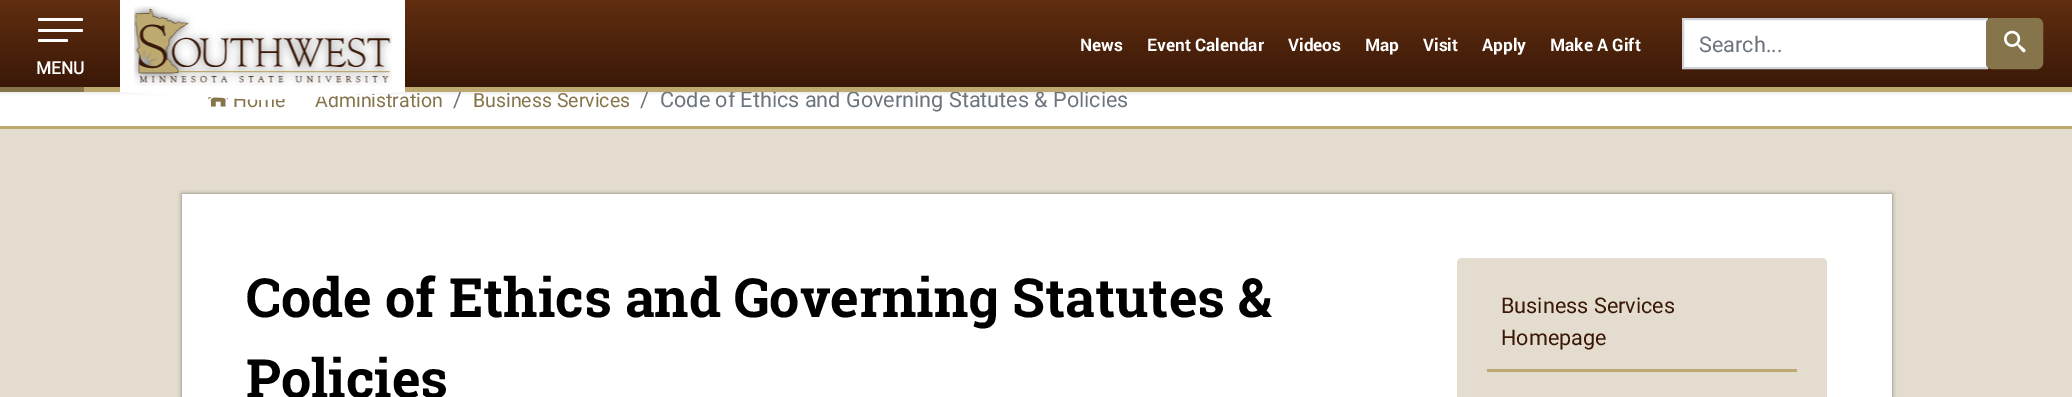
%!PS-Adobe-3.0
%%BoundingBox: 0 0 2072 397
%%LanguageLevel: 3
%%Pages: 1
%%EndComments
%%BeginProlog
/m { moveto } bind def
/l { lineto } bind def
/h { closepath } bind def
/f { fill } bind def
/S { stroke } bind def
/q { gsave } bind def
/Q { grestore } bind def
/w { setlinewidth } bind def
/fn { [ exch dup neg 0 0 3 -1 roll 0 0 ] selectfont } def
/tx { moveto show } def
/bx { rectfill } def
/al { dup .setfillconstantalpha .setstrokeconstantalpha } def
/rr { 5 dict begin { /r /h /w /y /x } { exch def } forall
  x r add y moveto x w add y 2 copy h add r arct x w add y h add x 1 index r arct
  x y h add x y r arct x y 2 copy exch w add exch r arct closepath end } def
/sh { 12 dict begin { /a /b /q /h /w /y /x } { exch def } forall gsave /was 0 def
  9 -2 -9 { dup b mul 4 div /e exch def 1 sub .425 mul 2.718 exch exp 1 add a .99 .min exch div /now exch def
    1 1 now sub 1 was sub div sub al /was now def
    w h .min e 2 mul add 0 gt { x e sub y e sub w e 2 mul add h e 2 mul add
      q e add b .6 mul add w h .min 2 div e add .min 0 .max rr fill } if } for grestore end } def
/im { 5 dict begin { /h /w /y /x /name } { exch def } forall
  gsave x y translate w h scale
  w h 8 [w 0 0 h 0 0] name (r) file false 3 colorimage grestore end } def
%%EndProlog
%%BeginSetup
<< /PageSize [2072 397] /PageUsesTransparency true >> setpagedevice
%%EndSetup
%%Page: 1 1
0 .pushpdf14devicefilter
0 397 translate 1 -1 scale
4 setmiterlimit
0.89 0.863 0.812 setrgbcolor
0 0 2072 397 bx
1 setgray
0 92 2072 34 bx
(image2.raw) 208 96 20 11 im
0 setgray
0 0 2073 92 0 2 0.15 sh
q 0 0 m 2072 0 l 2072 87 l 0 87 l h clip newpath
<< /ShadingType 2 /ColorSpace /DeviceRGB /Coords [1037 0 1037 87] /Extend [true true] /Function << /FunctionType 2 /Domain [0 1] /C0 [0.38 0.18 0.063] /C1 [0.227 0.094 0.027] /N 1 >> >> shfill Q
/Roboto-Regular 21.6 fn
0.424 0.459 0.49 setrgbcolor
(/) 453 107 tx
(/) 640 107 tx
(Code of Ethics and Governing Statutes & Policies) 660 107 tx
0.737 0.667 0.443 setrgbcolor
84 87 1988 5 bx
1 setgray
120 0 285 92 bx
(image0.raw) 134 6 258 80 im
/Roboto-Regular 19.5 fn
0.525 0.455 0.294 setrgbcolor
(Home) 233 107 tx
(Administration) 315 107 tx
1 setgray
120 92 m 405 92 l 262 100 l h f
/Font-Bold 17.25 fn
(News) 1080 51 tx
(Event Calendar) 1147 51 tx
(Videos) 1288 51 tx
(Map) 1365 51 tx
(Visit) 1423 51 tx
(Apply) 1482 51 tx
(Make A Gift) 1550 51 tx
1683 19 m 1987 19 l 1987 68 l 1683 68 l h q f Q
0.808 0.831 0.855 setrgbcolor
2 w
S
/Roboto-Regular 21.6 fn
0.424 0.459 0.49 setrgbcolor
(Search...) 1699 52 tx
0.525 0.455 0.294 setrgbcolor
1987 19 55 49 5 rr q f Q
S
(image1.raw) 2004 30 22 23 im
1 setgray
38 18 45 3 1.5 rr f
38 29 45 3 1.5 rr f
38 39 30 3 1.5 rr f
/Roboto-Bold 17.25 fn
(MENU) 36 74 tx
0.525 0.455 0.294 setrgbcolor
0 87 84 5 bx
0.737 0.667 0.443 setrgbcolor
0 126 2072 3 bx
/Roboto-Regular 19.5 fn
0.525 0.455 0.294 setrgbcolor
(Business Services) 473 107 tx
0 setgray
182 194 1710 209 0 2 0.45 sh
1 setgray
182 194 1710 203 bx
/RobotoSlab-Bold 54 fn
0 setgray
(Code of Ethics and Governing Statutes &) 246 317 tx
(Policies) 246 398 tx
0.89 0.863 0.812 setrgbcolor
1457 258 370 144 5 rr f
0.737 0.667 0.443 setrgbcolor
1487 369 310 3 bx
/Roboto-Regular 21.6 fn
0.227 0.094 0.027 setrgbcolor
(Business Services) 1501 313 tx
(Homepage) 1501 345 tx
.poppdf14devicefilter showpage
%%EOF
